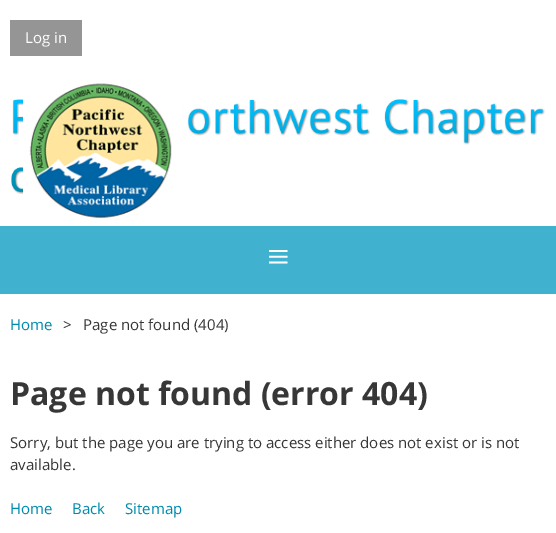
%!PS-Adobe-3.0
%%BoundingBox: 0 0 556 533
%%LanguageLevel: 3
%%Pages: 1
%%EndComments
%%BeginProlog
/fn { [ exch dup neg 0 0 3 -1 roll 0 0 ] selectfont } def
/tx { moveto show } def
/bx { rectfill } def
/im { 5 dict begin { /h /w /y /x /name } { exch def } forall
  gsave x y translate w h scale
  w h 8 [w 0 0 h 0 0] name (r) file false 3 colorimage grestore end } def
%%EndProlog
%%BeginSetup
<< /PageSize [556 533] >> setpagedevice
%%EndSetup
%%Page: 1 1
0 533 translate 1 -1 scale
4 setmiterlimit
1 setgray
0 0 556 533 bx
0.584 setgray
10 20 72 36 bx
/OpenSans-Regular 15 fn
1 setgray
(Log in) 25 43 tx
(image1.raw) 11 99 534 95 im
(image0.raw) 23 83 160 135 im
0.251 0.698 0.812 setrgbcolor
0 226 556 68 bx
/LiberationSerif-Regular 40 fn
1 setgray
(≡) 267 270 tx
/OpenSans-Regular 15 fn
0 0.545 0.682 setrgbcolor
(Home) 10 330 tx
0.216 setgray
(>) 63 330 tx
(Page not found \(404\)) 83 330 tx
/OpenSans-Bold 32 fn
(Page not found \(error 404\)) 10 405 tx
/OpenSans-Regular 15 fn
(Sorry, but the page you are trying to access either does not exist or is not) 10 448 tx
(available.) 10 470 tx
0 0.545 0.682 setrgbcolor
(Home) 10 514 tx
(Back) 72 514 tx
(Sitemap) 125 514 tx
showpage
%%EOF
